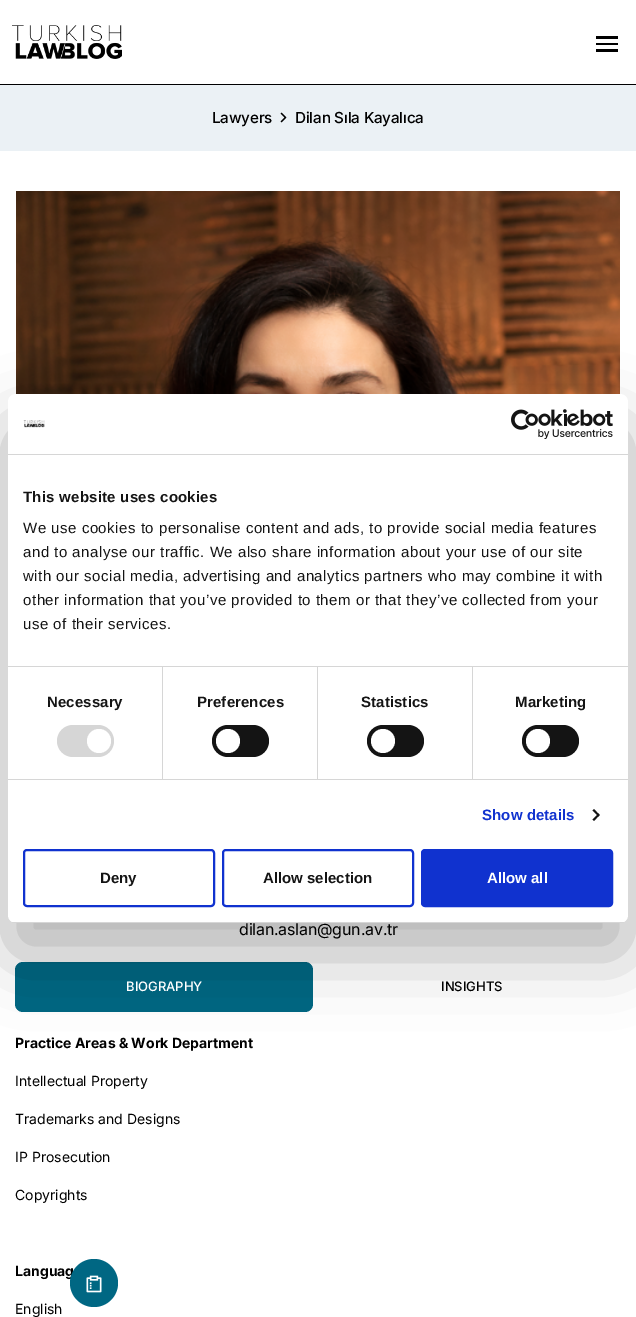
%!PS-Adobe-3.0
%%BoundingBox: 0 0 636 1317
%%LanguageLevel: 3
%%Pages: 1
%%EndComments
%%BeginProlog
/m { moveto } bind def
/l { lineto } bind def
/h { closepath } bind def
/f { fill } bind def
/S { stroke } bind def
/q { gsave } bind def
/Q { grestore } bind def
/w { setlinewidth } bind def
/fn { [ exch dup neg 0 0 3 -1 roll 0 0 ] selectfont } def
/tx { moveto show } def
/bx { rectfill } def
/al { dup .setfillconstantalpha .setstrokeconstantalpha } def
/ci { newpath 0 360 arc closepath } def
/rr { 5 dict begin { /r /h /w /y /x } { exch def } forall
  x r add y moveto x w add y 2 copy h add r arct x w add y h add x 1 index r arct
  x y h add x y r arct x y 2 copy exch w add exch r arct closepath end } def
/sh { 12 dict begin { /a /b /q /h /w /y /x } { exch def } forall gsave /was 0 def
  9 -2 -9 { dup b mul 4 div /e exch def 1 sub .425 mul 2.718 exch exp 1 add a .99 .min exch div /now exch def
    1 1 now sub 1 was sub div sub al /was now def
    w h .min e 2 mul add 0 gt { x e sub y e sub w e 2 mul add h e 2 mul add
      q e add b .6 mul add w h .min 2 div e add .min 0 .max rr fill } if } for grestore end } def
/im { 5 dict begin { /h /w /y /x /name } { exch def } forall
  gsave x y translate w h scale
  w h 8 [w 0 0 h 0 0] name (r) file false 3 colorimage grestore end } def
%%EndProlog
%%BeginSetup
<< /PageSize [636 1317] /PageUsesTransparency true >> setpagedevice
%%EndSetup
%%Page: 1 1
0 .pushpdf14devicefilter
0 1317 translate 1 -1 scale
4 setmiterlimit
1 setgray
0 0 636 1317 bx
0 setgray
0 84 636 1 bx
(image0.raw) 12 25 110 34 im
596 36 22 3 bx
596 43 22 2 bx
596 49 22 3 bx
0.922 0.945 0.961 setrgbcolor
0 85 636 66 bx
/Inter-Medium 15.25 fn
0 setgray
212 123 m -0.2 0 (Lawyers) ashow
1.4 w
1 setlinecap
1 setlinejoin
281.5 113.5 m 285.5 117.5 l 281.5 121.5 l S
295 123 m -0.2 0 (Dilan Sıla Kayalıca) ashow
(image3.raw) 16 191 604 203 im
0 0.404 0.514 setrgbcolor
15 962 298 50 8 rr f
0 setgray
8 426 620 529 8 34 0.3 sh
1 setgray
8 394 620 529 8 rr f
0.839 setgray
8 454 620 1 bx
(image1.raw) 23 420 22 8 im
(image2.raw) 511 409 102 30 im
8 666 620 1 bx
/LiberationSans-Bold 15 fn
0.078 setgray
23 502 m 0.25 0 (This website uses cookies) ashow
/LiberationSans-Regular 15 fn
23 533 m 0.5 0 (We use cookies to personalise content and ads, to provide social media features) ashow
23 557 m 0.5 0 (and to analyse our traffic. We also share information about your use of our site) ashow
23 581 m 0.5 0 (with our social media, advertising and analytics partners who may combine it with) ashow
23 605 m 0.5 0 (other information that you’ve provided to them or that they’ve collected from your) ashow
23 629 m 0.5 0 (use of their services.) ashow
0.839 setgray
8 779 620 1 bx
162 667 1 112 bx
/LiberationSans-Bold 15 fn
0.078 setgray
47 707 m 0.1 0 (Necessary) ashow
0.839 setgray
57 725 57 32 16 rr f
1 setgray
99 741 12 ci f
0.839 setgray
317 667 1 112 bx
0.078 setgray
197 707 m 0.1 0 (Preferences) ashow
212 725 57 32 16 rr f
1 setgray
228 741 12 ci f
0.839 setgray
472 667 1 112 bx
0.078 setgray
361 707 m 0.1 0 (Statistics) ashow
367 725 57 32 16 rr f
1 setgray
383 741 12 ci f
0.078 setgray
515 707 m 0.1 0 (Marketing) ashow
522 725 57 32 16 rr f
1 setgray
538 741 12 ci f
0.063 0.196 0.812 setrgbcolor
482 820 m 0.1 0 (Show details) ashow
0.078 setgray
594 809 m 599.5 815 l 598.5 816.5 l 592.5 810.5 l h f
598.5 813.5 m 599.5 815 l 594 821 l 592.5 819.5 l h f
q
8 394 620 529 8 rr clip newpath
0.839 setgray
8 922 620 1 bx
Q
0.063 0.196 0.812 setrgbcolor
2 w
0 setlinecap
0 setlinejoin
24 850 190 56 3 rr S
0.078 setgray
(Deny) 100 883 tx
0.063 0.196 0.812 setrgbcolor
223 850 190 56 3 rr S
0.078 setgray
(Allow selection) 263 883 tx
0.063 0.196 0.812 setrgbcolor
422 850 190 56 3 rr q f Q
S
1 setgray
(Allow all) 487 883 tx
/Inter-Regular 16 fn
0 setgray
239 935 m -0.2 0 (dilan.aslan@gun.av.tr) ashow
/Inter-Medium 13 fn
1 setgray
(BIOGRAPHY) 126 991 tx
0 setgray
(INSIGHTS) 441 991 tx
/Inter-Bold 14 fn
(Practice Areas & Work Department) 15 1048 tx
/Inter-Regular 14 fn
(Intellectual Property) 15 1086 tx
(Trademarks and Designs) 15 1124 tx
(IP Prosecution) 15 1162 tx
(Copyrights) 15 1200 tx
/Inter-Bold 14 fn
(Languag) 15 1276 tx
/Inter-Regular 14 fn
(English) 15 1314 tx
0 0.404 0.514 setrgbcolor
94 1283 24 ci f
(image4.raw) 86 1275 16 18 im
.poppdf14devicefilter showpage
%%EOF
